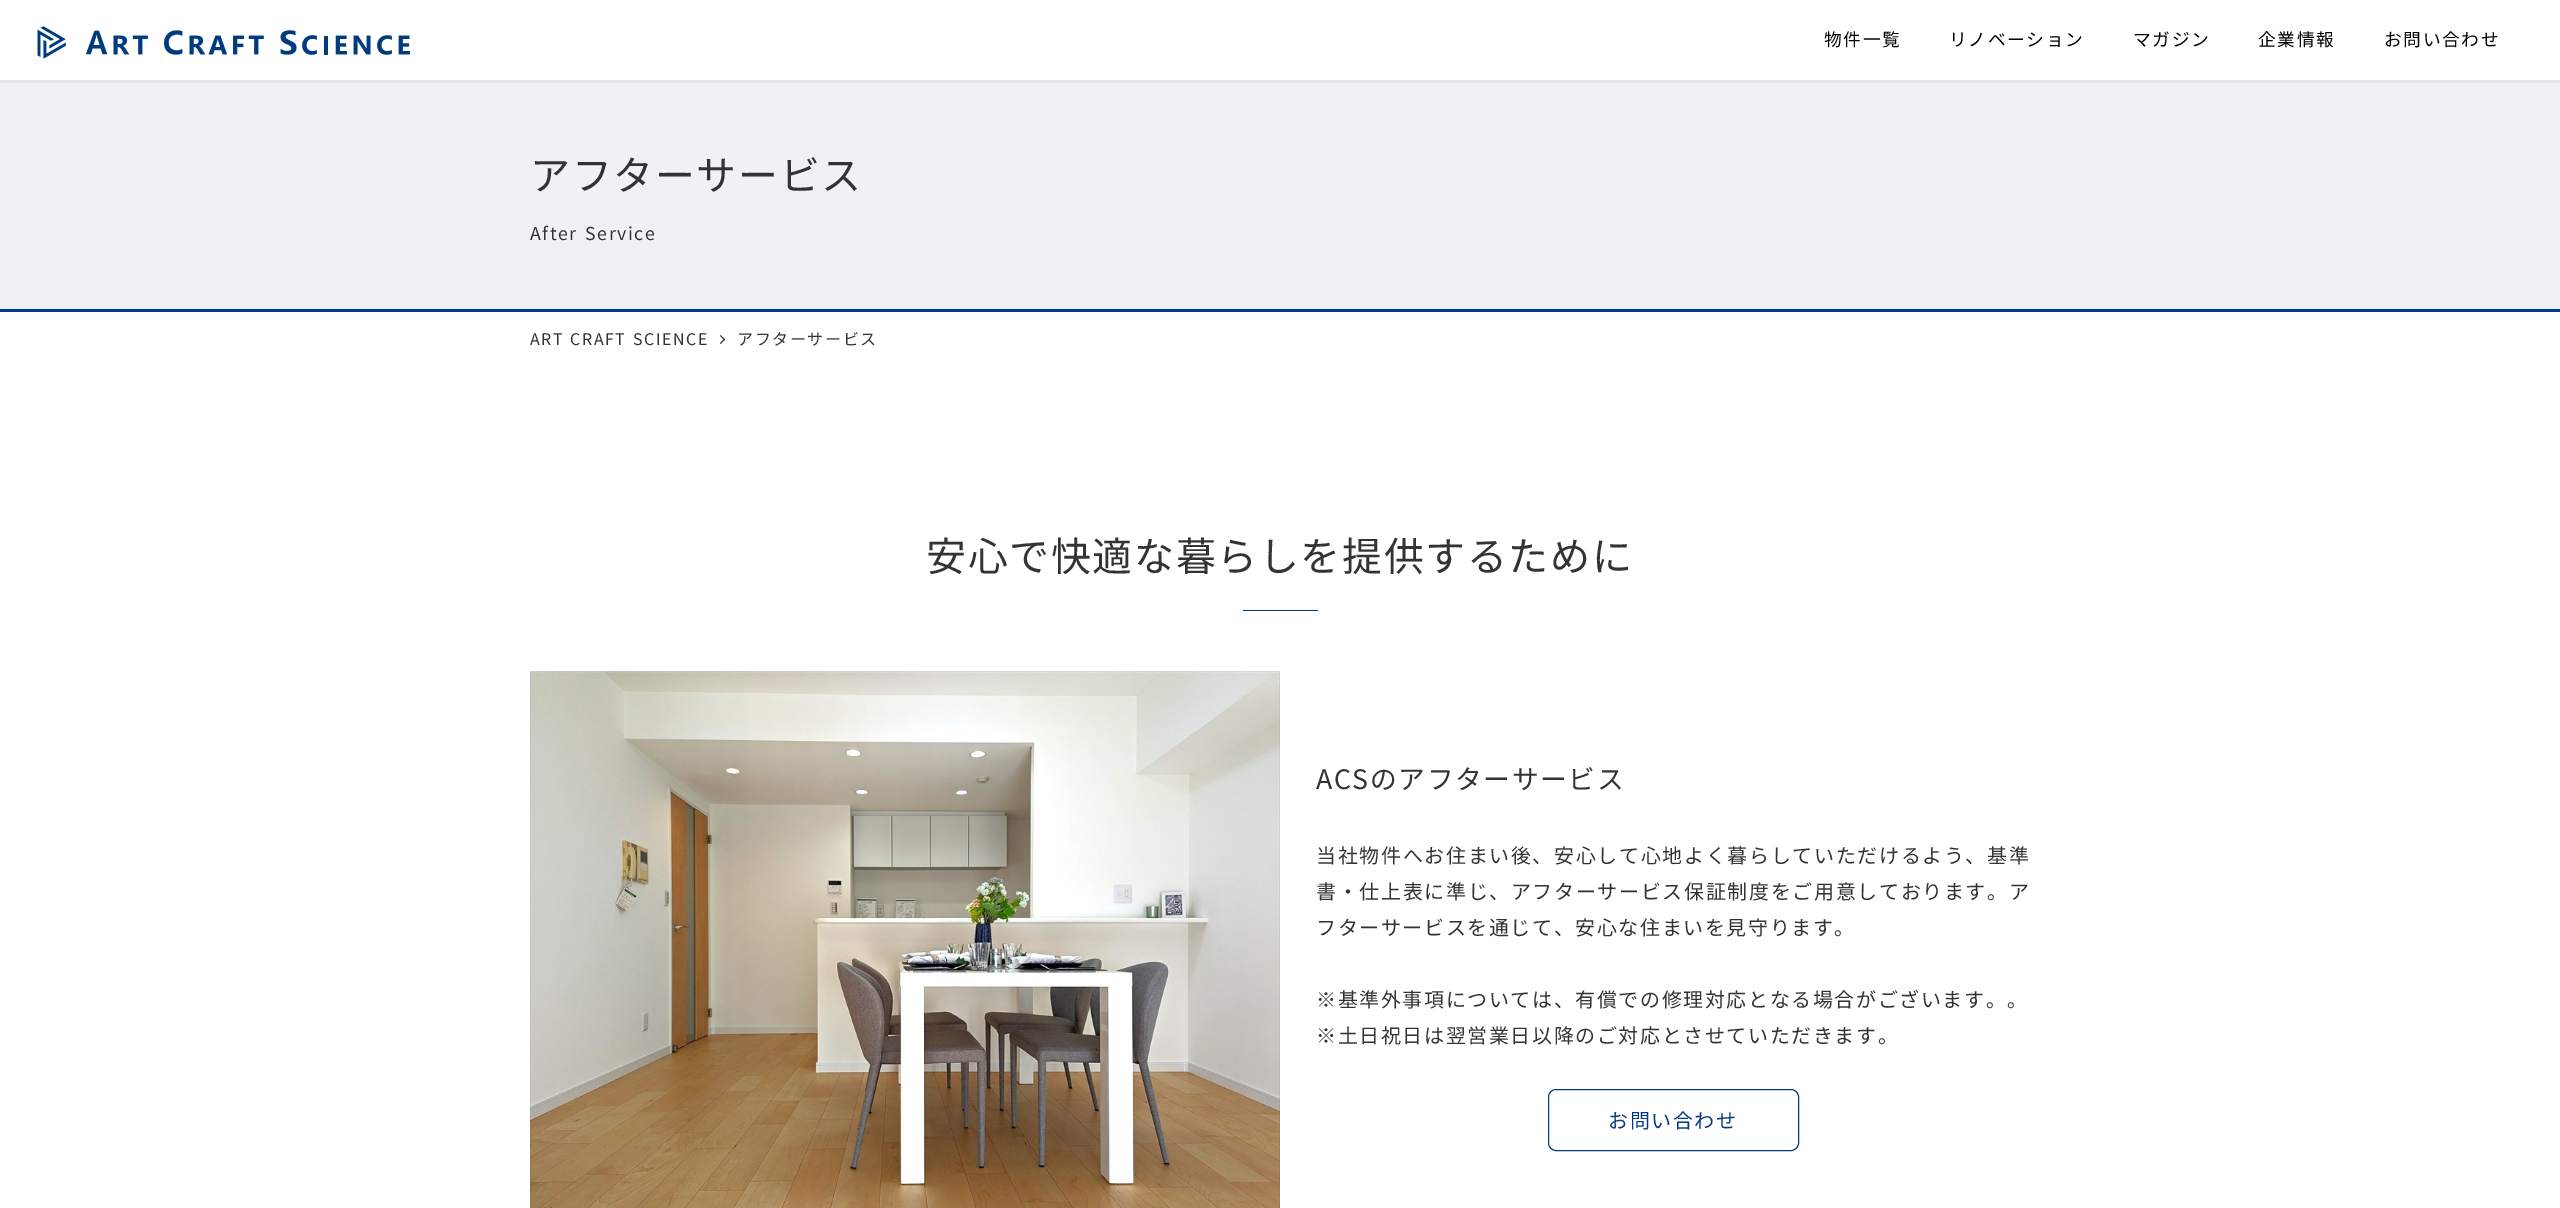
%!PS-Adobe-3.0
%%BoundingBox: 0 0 2560 1208
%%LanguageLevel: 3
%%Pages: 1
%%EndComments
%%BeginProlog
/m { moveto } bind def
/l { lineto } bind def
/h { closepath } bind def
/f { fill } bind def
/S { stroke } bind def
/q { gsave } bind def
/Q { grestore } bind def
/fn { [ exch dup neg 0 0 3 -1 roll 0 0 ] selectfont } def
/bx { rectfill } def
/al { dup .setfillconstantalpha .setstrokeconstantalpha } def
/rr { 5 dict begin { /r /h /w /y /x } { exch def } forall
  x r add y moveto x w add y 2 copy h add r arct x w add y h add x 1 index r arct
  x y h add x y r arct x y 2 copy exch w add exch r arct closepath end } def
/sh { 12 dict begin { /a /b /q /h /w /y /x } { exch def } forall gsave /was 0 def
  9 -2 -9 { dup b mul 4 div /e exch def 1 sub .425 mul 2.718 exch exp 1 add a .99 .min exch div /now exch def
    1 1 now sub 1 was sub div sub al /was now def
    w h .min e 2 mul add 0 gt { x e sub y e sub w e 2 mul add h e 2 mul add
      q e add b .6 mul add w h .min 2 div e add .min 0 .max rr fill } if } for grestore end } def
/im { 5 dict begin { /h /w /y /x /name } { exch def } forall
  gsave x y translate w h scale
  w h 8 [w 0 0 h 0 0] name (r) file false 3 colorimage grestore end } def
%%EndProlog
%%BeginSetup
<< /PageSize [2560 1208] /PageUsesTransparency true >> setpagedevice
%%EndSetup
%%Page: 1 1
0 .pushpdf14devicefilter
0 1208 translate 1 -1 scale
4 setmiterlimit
1 setgray
0 0 2560 1208 bx
0.941 0.945 0.961 setrgbcolor
0 80 2560 229 bx
q
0 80 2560 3 rectclip
0 setgray
-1 0 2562 83 0 1 0.05 sh
Q
(image0.raw) 37 26 373 33 im
/NotoSansJP-Regular 17.75 fn
0 setgray
1824 46 m 1.6 0 (物件一覧) ashow
1949 46 m 1.6 0 (リノベーション) ashow
2133 46 m 1.6 0 (マガジン) ashow
2258 46 m 1.6 0 (企業情報) ashow
2384 46 m 1.6 0 (お問い合わせ) ashow
0 0.235 0.541 setrgbcolor
0 309 2560 3 bx
/NotoSansJP-Regular 40 fn
0.2 setgray
530 190 m 1.6 0 (アフターサービス) ashow
/NotoSansJP-Regular 17.75 fn
530 240 m 1.6 0 (After) ashow
585 240 m 1.6 0 (Service) ashow
/NotoSansJP-Regular 16 fn
530 345 m 1.6 0 (ART) ashow
570 345 m 1.6 0 (CRAFT) ashow
633 345 m 1.6 0 (SCIENCE) ashow
720.5 335 m 725 339.5 l 724.5 340.5 l 720 336 l h f
724.5 338.5 m 725 339.5 l 720.5 344 l 720 343 l h f
737 345 m 1.6 0 (アフターサービス) ashow
/NotoSansJP-Regular 40 fn
926 571 m 1.6 0 (安心で快適な暮らしを提供するために) ashow
0.02 0.231 0.502 setrgbcolor
1243 610 75 1 bx
(image1.raw) 530 671 750 537 im
/NotoSansJP-Regular 26.75 fn
0.2 setgray
1316 789 m 1.6 0 (ACSのアフターサービス) ashow
/NotoSansJP-Regular 20 fn
1316 863 m 1.65 0 (当社物件へお住まい後、安心して心地よく暮らしていただけるよう、基準) ashow
1316 899 m 1.65 0 (書・仕上表に準じ、アフターサービス保証制度をご用意しております。ア) ashow
1316 935 m 1.6 0 (フターサービスを通じて、安心な住まいを見守ります。) ashow
1316 1007 m 1.6 0 (※基準外事項については、有償での修理対応となる場合がございます。。) ashow
1316 1043 m 1.6 0 (※土日祝日は翌営業日以降のご対応とさせていただきます。) ashow
0.02 0.231 0.502 setrgbcolor
1548.5 1089.5 250 61 7.5 rr S
1608 1128 m 1.6 0 (お問い合わせ) ashow
.poppdf14devicefilter showpage
%%EOF
